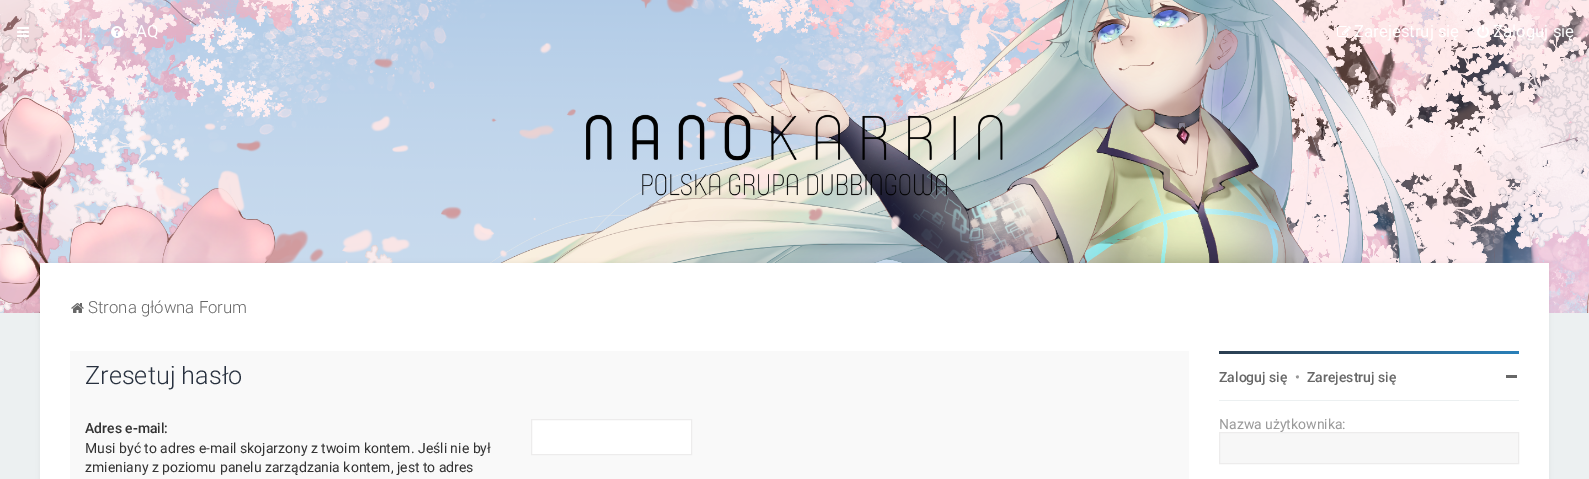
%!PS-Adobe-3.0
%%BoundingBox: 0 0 1589 479
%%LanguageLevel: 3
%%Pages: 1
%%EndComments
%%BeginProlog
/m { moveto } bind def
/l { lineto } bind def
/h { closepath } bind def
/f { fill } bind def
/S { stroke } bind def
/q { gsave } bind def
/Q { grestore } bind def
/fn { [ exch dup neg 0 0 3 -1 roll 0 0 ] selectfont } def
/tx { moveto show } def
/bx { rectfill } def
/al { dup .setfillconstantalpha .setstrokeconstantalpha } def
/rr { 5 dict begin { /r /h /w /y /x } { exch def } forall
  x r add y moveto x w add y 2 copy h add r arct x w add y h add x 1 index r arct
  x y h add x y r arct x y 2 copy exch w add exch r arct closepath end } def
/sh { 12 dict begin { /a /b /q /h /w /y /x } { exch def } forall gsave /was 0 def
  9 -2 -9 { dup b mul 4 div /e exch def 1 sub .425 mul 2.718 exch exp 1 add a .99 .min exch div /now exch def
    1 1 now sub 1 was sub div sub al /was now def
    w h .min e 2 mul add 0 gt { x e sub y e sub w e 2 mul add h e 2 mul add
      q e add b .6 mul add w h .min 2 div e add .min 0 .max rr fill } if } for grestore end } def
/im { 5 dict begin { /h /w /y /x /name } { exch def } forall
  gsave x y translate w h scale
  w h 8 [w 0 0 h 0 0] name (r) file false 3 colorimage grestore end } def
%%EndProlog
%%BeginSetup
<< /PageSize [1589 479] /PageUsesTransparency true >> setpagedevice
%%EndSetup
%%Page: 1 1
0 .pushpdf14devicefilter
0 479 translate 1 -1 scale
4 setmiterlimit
0.925 0.941 0.945 setrgbcolor
0 0 1589 479 bx
(image0.raw) 0 0 1589 313 im
(image1.raw) 17 27 12 10 im
/Roboto-Regular 16.75 fn
1 setgray
(j…) 79 37 tx
(image2.raw) 111 26 12 12 im
(AQ) 136 37 tx
(image3.raw) 1337 26 14 11 im
(Zarejestruj się) 1354 37 tx
(image4.raw) 1477 25 12 13 im
(Zaloguj się) 1493 37 tx
(image5.raw) 586 114 417 82 im
0 setgray
40 263 1509 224 0 2.5 0.05 sh
1 setgray
40 263 1509 216 bx
(image6.raw) 71 303 13 10 im
/Roboto-Light 16.75 fn
0.404 setgray
(Strona główna Forum) 88 313 tx
0.976 setgray
70 351 1119 128 bx
q
85 366 1089 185 rectclip
/Roboto-Light 25.25 fn
0.157 0.192 0.247 setrgbcolor
(Zresetuj hasło) 85 384 tx
Q
/Roboto-Medium 14 fn
0.2 setgray
(Adres e-mail:) 85 433 tx
/Roboto-Regular 14 fn
(Musi być to adres e-mail skojarzony z twoim kontem. Jeśli nie był) 85 453 tx
(zmieniany z poziomu panelu zarządzania kontem, jest to adres) 85 472 tx
1 setgray
531.5 419.5 m 691.5 419.5 l 691.5 454.5 l 531.5 454.5 l h q f Q
0.929 0.925 0.925 setrgbcolor
S
q 1219 351 m 1519 351 l 1519 354 l 1219 354 l h clip newpath
<< /ShadingType 2 /ColorSpace /DeviceRGB /Coords [1219 353 1519 353] /Extend [true true] /Function << /FunctionType 2 /Domain [0 1] /C0 [0.173 0.243 0.314] /C1 [0.161 0.502 0.725] /N 1 >> >> shfill Q
/Roboto-Medium 14 fn
0.404 setgray
(Zaloguj się) 1219 382 tx
0.6 setgray
(•) 1295 382 tx
0.404 setgray
(Zarejestruj się) 1307 382 tx
1506 375 11 3 bx
0.925 0.941 0.945 setrgbcolor
1219 400 300 1 bx
/Roboto-Regular 14 fn
0.6 setgray
(Nazwa użytkownika:) 1219 429 tx
0.969 setgray
1219.5 432.5 m 1518.5 432.5 l 1518.5 463.5 l 1219.5 463.5 l h q f Q
0.929 0.925 0.925 setrgbcolor
S
.poppdf14devicefilter showpage
%%EOF
